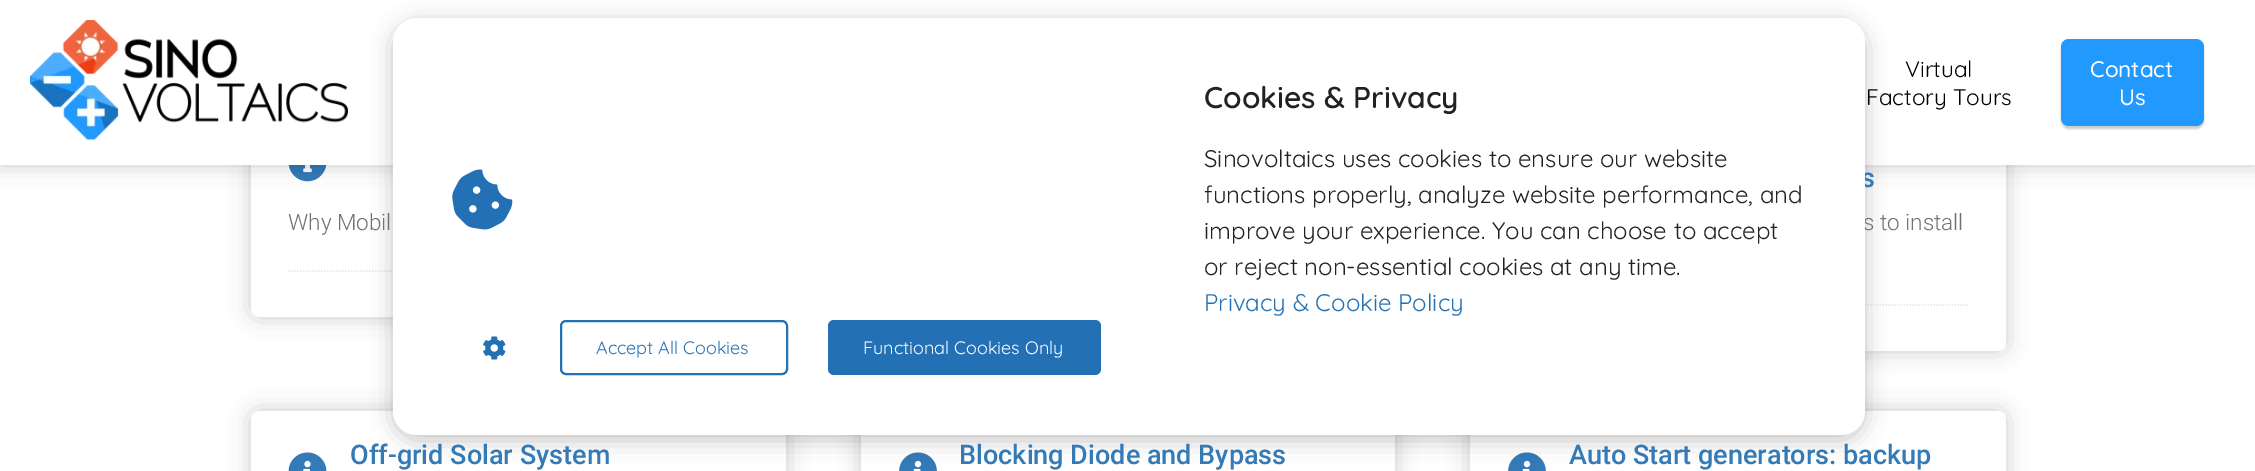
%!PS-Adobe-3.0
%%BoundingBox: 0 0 2255 471
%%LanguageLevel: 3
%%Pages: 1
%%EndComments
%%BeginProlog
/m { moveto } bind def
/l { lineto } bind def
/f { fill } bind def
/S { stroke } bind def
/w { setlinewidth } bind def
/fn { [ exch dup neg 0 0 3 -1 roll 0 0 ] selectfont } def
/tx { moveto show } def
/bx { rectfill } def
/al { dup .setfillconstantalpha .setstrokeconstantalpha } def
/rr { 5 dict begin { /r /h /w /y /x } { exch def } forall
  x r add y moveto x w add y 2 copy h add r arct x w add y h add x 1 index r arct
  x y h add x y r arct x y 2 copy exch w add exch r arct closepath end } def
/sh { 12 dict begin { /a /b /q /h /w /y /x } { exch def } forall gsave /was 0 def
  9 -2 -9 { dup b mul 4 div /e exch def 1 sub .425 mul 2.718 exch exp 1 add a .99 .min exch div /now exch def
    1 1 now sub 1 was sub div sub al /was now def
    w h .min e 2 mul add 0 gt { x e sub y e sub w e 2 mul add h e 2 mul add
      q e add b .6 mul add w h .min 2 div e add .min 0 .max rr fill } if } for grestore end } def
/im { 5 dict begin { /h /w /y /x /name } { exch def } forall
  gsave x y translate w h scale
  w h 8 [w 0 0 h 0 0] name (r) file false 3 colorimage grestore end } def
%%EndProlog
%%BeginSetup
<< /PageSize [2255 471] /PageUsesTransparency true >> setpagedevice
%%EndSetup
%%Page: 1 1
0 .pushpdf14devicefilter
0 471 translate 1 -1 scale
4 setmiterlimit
1 setgray
0 0 2255 471 bx
0 setgray
251 102 535 215 8 11 0.2 sh
1 setgray
251 102 535 215 8 rr f
(image3.raw) 288 165 39 17 im
0 setgray
1470 102 536 249 8 11 0.2 sh
1 setgray
1470 102 536 249 8 rr f
0 setgray
0 0 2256 165 0 11 0.2 sh
1 setgray
0 0 2255 165 bx
0.91 setgray
1.5 w
[1.5 1.5] 0 setdash
288 271 m 748.5 271 l S
1507.5 305 m 1968 305 l S
0 setgray
251 411 535 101 8 11 0.2 sh
1 setgray
251 411 535 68 8 rr f
0 setgray
861 411 534 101 8 11 0.2 sh
1 setgray
861 435 534 36 bx
(image5.raw) 899 452 38 19 im
0 setgray
1470 411 536 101 8 11 0.2 sh
1 setgray
1470 411 536 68 8 rr f
(image5.raw) 1508 452 38 19 im
0 setgray
393 23 1472 417 24 11 0.24 sh
/Roboto-Medium 27 fn
0.2 0.478 0.718 setrgbcolor
(s) 1861 187 tx
/Roboto-Light 22.5 fn
0.443 setgray
(s to install) 1863 230 tx
1 setgray
393 18 1472 417 24 rr f
(image0.raw) 452 169 61 61 im
/Quicksand-SemiBold 30 fn
0.133 setgray
(Cookies & Privacy) 1204 108 tx
/Quicksand-Regular 24 fn
(Sinovoltaics uses cookies to ensure our website) 1204 167 tx
(functions properly, analyze website performance, and) 1204 203 tx
(improve your experience. You can choose to accept) 1204 239 tx
(or reject non-essential cookies at any time.) 1204 275 tx
0.137 0.439 0.71 setrgbcolor
(Privacy & Cookie Policy) 1204 311 tx
(image1.raw) 483 336 23 24 im
2 w
[] 0 setdash
561 321 226 53 5 rr S
/Quicksand-Regular 18 fn
(Accept All Cookies) 596 354 tx
828 320 273 55 6 rr f
1 setgray
(Functional Cookies Only) 863 354 tx
(image2.raw) 30 20 318 120 im
/Quicksand-Regular 22.5 fn
0 setgray
(Virtual) 1905 77 tx
(Factory Tours) 1866 105 tx
2061 42 143 87 8 1 0.2 sh
0.129 0.6 1 setrgbcolor
2061 39 143 87 8 rr f
/Quicksand-Medium 22.5 fn
1 setgray
(Contact) 2090 77 tx
(Us) 2119 105 tx
/Roboto-Light 22.5 fn
0.443 setgray
(Why Mobil) 288 230 tx
(image4.raw) 288 452 39 19 im
/Roboto-Medium 27 fn
0.2 0.478 0.718 setrgbcolor
(Off-grid Solar System) 350 464 tx
(Blocking Diode and Bypass) 959 464 tx
(Auto Start generators: backup) 1569 464 tx
.poppdf14devicefilter showpage
%%EOF
